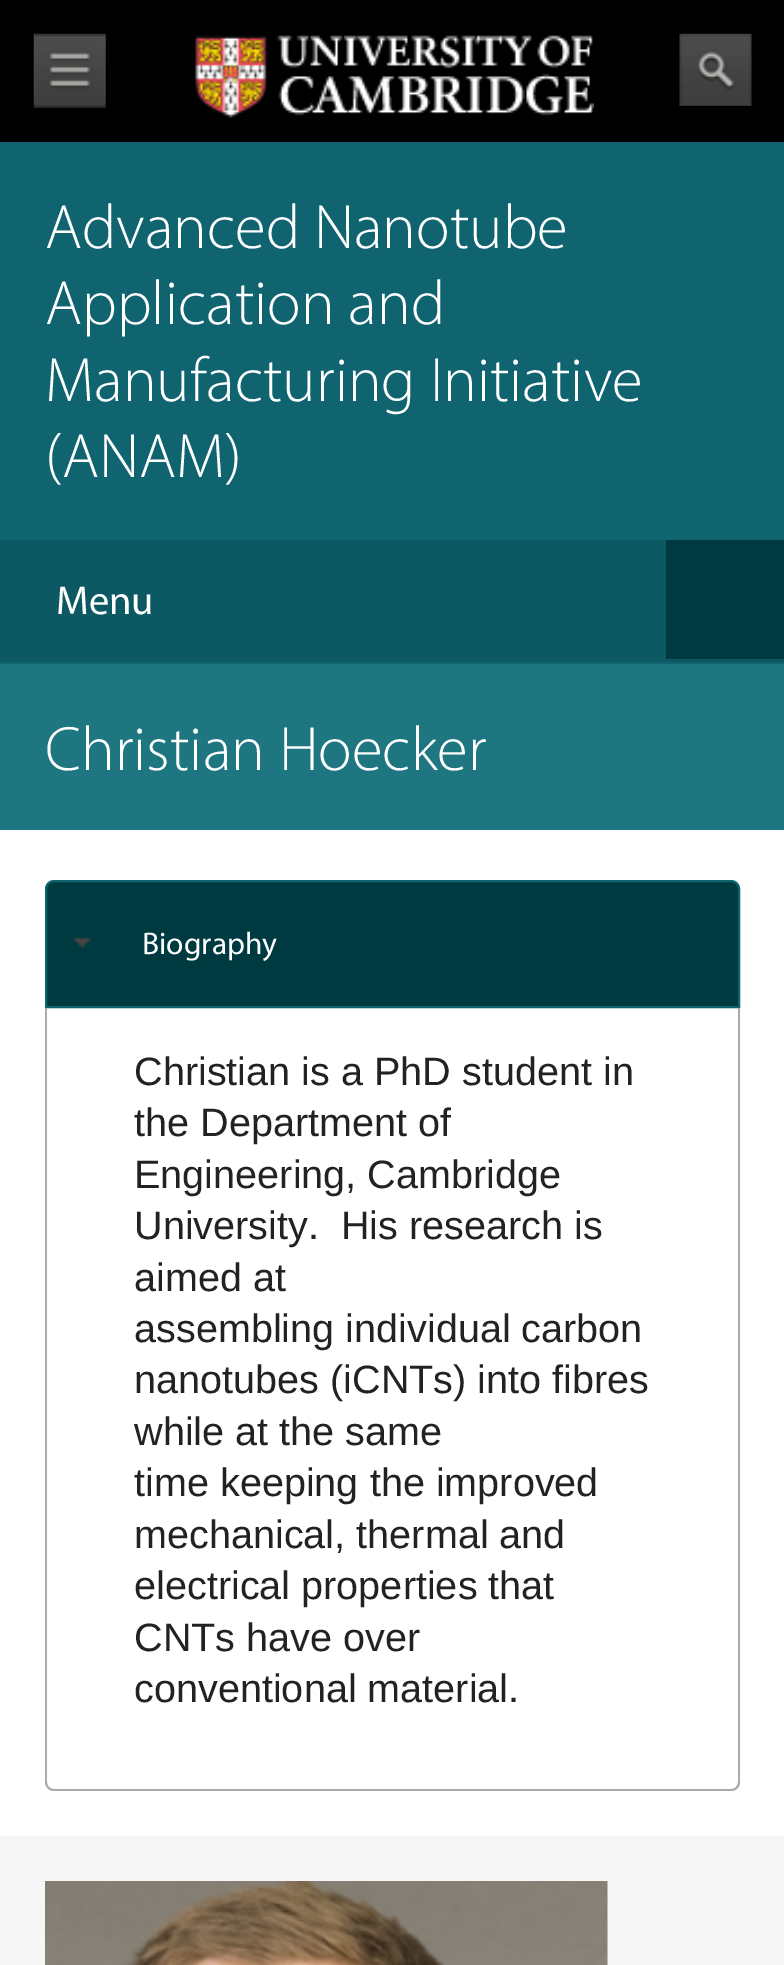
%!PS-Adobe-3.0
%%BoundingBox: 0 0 784 1965
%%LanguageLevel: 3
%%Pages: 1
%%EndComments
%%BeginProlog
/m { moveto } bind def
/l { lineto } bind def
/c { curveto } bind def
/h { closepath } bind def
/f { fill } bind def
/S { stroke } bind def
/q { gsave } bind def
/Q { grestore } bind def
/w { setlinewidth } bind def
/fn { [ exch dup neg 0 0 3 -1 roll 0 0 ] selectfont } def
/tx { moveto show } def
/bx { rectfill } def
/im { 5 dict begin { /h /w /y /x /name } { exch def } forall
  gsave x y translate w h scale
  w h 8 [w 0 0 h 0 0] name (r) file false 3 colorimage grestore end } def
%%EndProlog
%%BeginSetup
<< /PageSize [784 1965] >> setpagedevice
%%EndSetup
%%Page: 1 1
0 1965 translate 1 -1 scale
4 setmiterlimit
0 setgray
0 0 784 1965 bx
(image0.raw) 33 33 73 75 im
(image1.raw) 195 35 399 83 im
(image2.raw) 679 33 73 73 im
0.063 0.392 0.439 setrgbcolor
0 142 784 398 bx
/Myriad-Light 63 fn
1 setgray
(Advanced Nanotube) 45 248 tx
(Application and) 45 324 tx
(Manufacturing Initiative) 45 401 tx
(\(ANAM\)) 45 477 tx
0.047 0.349 0.388 setrgbcolor
0 540 784 122 bx
0.063 0.392 0.439 setrgbcolor
0 662 784 2 bx
/Myriad-Regular 40.5 fn
1 setgray
(Menu) 56 614 tx
0 0.227 0.255 setrgbcolor
666 540 118 119 bx
0.118 0.463 0.502 setrgbcolor
0 664 784 166 bx
/Myriad-Light 63 fn
1 setgray
(Christian Hoecker) 45 770 tx
0 830 784 1006 bx
0 0.227 0.255 setrgbcolor
54 881 m 731 881 l 735.5 881 739 884.5 739 889 c 739 1007 l 46 1007 l 46 889 l 46 884.5 49.5 881 54 881 c h q f Q
0.063 0.392 0.439 setrgbcolor
2 w
S
(image3.raw) 73 937 18 11 im
/Myriad-Regular 31.5 fn
1 setgray
(Biography) 142 954 tx
0.667 setgray
45 1008 m 740 1008 l 740 1782 l 740 1787 736 1791 731 1791 c 54 1791 l 49 1791 45 1787 45 1782 c h 47 1008 m 738 1008 l 738 1782 l 738 1786 735 1789 731 1789 c 54 1789 l 50 1789 47 1786 47 1782 c h eofill
/LiberationSans-Regular 39.6 fn
0.133 setgray
(Christian is a PhD student in) 134 1085 tx
(the Department of) 134 1136 tx
(Engineering, Cambridge) 134 1188 tx
(University.  His research is) 134 1239 tx
(aimed at) 134 1291 tx
(assembling individual carbon) 134 1342 tx
(nanotubes \(iCNTs\) into fibres) 134 1393 tx
(while at the same) 134 1445 tx
(time keeping the improved) 134 1496 tx
(mechanical, thermal and) 134 1548 tx
(electrical properties that) 134 1599 tx
(CNTs have over) 134 1651 tx
(conventional material.) 134 1702 tx
0.965 setgray
0 1836 784 129 bx
(image4.raw) 45 1881 563 84 im
showpage
%%EOF
